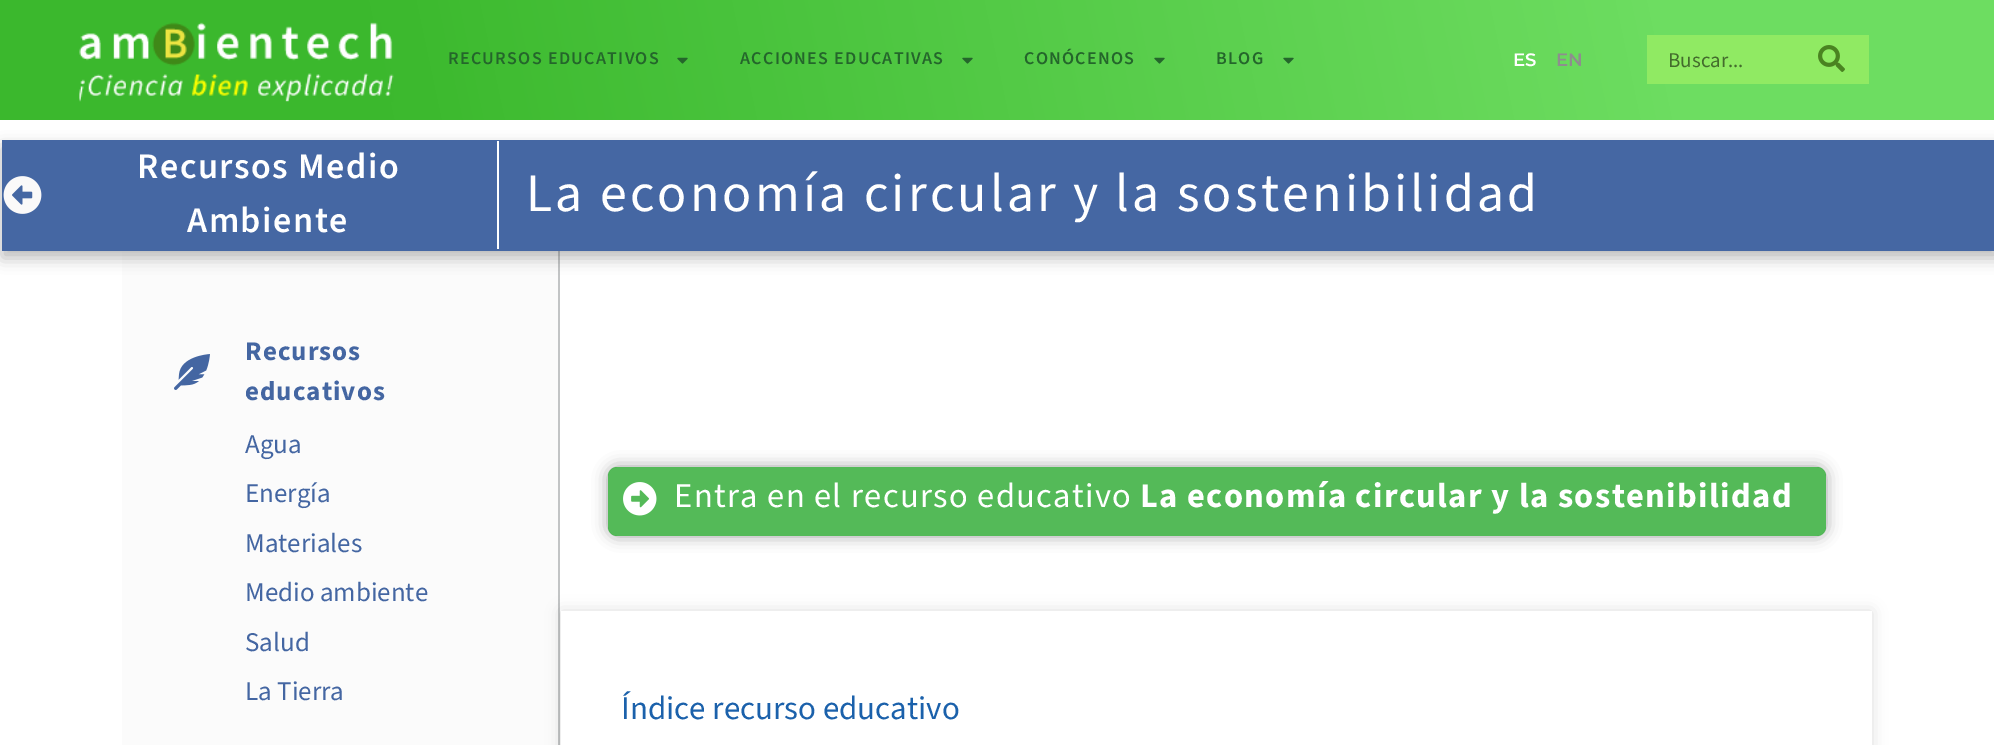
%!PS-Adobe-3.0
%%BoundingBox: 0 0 1994 745
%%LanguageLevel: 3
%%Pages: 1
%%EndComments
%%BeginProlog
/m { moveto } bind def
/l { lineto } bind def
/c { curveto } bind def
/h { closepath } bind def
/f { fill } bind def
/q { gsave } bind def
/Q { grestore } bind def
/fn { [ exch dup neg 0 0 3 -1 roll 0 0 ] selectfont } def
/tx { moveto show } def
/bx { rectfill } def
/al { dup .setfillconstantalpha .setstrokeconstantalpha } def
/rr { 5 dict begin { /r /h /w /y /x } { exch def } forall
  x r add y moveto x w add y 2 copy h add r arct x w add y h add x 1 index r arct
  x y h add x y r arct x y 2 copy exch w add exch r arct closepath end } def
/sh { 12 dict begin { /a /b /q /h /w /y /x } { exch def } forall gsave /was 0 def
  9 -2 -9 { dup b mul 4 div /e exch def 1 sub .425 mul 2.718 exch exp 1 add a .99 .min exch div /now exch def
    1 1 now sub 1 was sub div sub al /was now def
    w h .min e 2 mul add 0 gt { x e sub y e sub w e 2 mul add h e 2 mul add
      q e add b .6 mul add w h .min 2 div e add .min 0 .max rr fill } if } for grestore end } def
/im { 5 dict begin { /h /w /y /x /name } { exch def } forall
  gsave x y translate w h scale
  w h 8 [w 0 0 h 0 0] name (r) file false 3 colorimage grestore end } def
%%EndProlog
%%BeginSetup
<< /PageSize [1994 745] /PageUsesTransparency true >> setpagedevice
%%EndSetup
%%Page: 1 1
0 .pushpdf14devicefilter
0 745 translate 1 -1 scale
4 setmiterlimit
1 setgray
0 0 1994 745 bx
q 0 0 m 1994 0 l 1994 120 l 0 120 l h clip newpath
<< /ShadingType 2 /ColorSpace /DeviceRGB /Coords [31 265 1964 -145] /Extend [true true] /Function << /FunctionType 3 /Domain [0 1] /Functions [<< /FunctionType 2 /Domain [0 1] /C0 [0.231 0.722 0.176] /C1 [0.231 0.722 0.176] /N 1 >> << /FunctionType 2 /Domain [0 1] /C0 [0.231 0.722 0.176] /C1 [0.427 0.867 0.38] /N 1 >> << /FunctionType 2 /Domain [0 1] /C0 [0.427 0.867 0.38] /C1 [0.427 0.867 0.38] /N 1 >>] /Bounds [0.19 0.83] /Encode [0 1 0 1 0 1] >> >> shfill Q
(image0.raw) 79 22 315 80 im
/SourceSans3-SemiBold 18 fn
0.141 0.4 0.169 setrgbcolor
448 64 m 1.25 0 (RECURSOS EDUCATIVOS) ashow
(image1.raw) 677 57 11 7 im
740 64 m 1.25 0 (ACCIONES EDUCATIVAS) ashow
(image2.raw) 962 57 11 7 im
1024 64 m 1.25 0 (CONÓCENOS) ashow
(image3.raw) 1154 57 11 7 im
1216 64 m 1.25 0 (BLOG) ashow
(image4.raw) 1283 57 11 7 im
/Montserrat-SemiBold 18 fn
1 setgray
(ES) 1513 66 tx
0.557 setgray
(EN) 1556 66 tx
0.565 0.918 0.388 setrgbcolor
1647 35 222 49 bx
/SourceSansPro-Regular 21 fn
0.263 0.424 0.173 setrgbcolor
(Buscar...) 1668 67 tx
(image5.raw) 1818 45 27 27 im
0.984 setgray
122 251 436 494 bx
0.761 0.769 0.773 setrgbcolor
558 251 2 494 bx
q
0 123 m 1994 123 l 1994 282 l 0 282 l h 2 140 m 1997 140 l 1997 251 l 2 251 l h eoclip newpath
0.278 setgray
2 147 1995 111 0 7.5 0.37 sh
Q
0.76 al
0.039 0.216 0.525 setrgbcolor
2 140 1992 111 bx
1 al
1 setgray
497 141 2 108 bx
(image6.raw) 3 176 39 38 im
/SourceSans3-SemiBold 36 fn
137 178 m 1.5 0 (Recursos Medio) ashow
187 232 m 1.5 0 (Ambiente) ashow
/SourceSans3-Regular 54 fn
526 211 m 3.15 0 (La economía circular y la sostenibilidad) ashow
(image7.raw) 174 354 36 36 im
/SourceSans3-Bold 27 fn
0.267 0.4 0.635 setrgbcolor
245 360 m 1 0 (Recursos) ashow
245 400 m 1 0 (educativos) ashow
/SourceSans3-Regular 27 fn
(Agua) 245 453 tx
(Energía) 245 502 tx
(Materiales) 245 552 tx
(Medio ambiente) 245 601 tx
(Salud) 245 651 tx
(La Tierra) 245 700 tx
q
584 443 m 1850 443 l 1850 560 l 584 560 l h 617 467 m 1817 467 l 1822 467 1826 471 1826 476 c 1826 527 l 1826 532 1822 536 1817 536 c 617 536 l 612 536 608 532 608 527 c 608 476 l 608 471 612 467 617 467 c h eoclip newpath
0 setgray
608 467 1218 69 9 7.5 0.36 sh
Q
0.92 al
0.271 0.706 0.29 setrgbcolor
608 467 1218 69 9 rr f
1 al
(image8.raw) 623 482 34 34 im
/SourceSans3-Regular 34.5 fn
1 setgray
674 507 m 1.35 0 (Entra en el recurso educativo) ashow
/SourceSans3-Bold 34.5 fn
1140 507 m 1.35 0 (La economía circular y la sostenibilidad) ashow
q
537 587 m 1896 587 l 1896 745 l 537 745 l h 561 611 m 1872 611 l 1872 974 l 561 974 l h eoclip newpath
0 setgray
561 611 1311 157 0 7.5 0.13 sh
Q
/SourceSans3-Regular 33 fn
0.106 0.38 0.671 setrgbcolor
(Índice recurso educativo) 621 719 tx
.poppdf14devicefilter showpage
%%EOF
